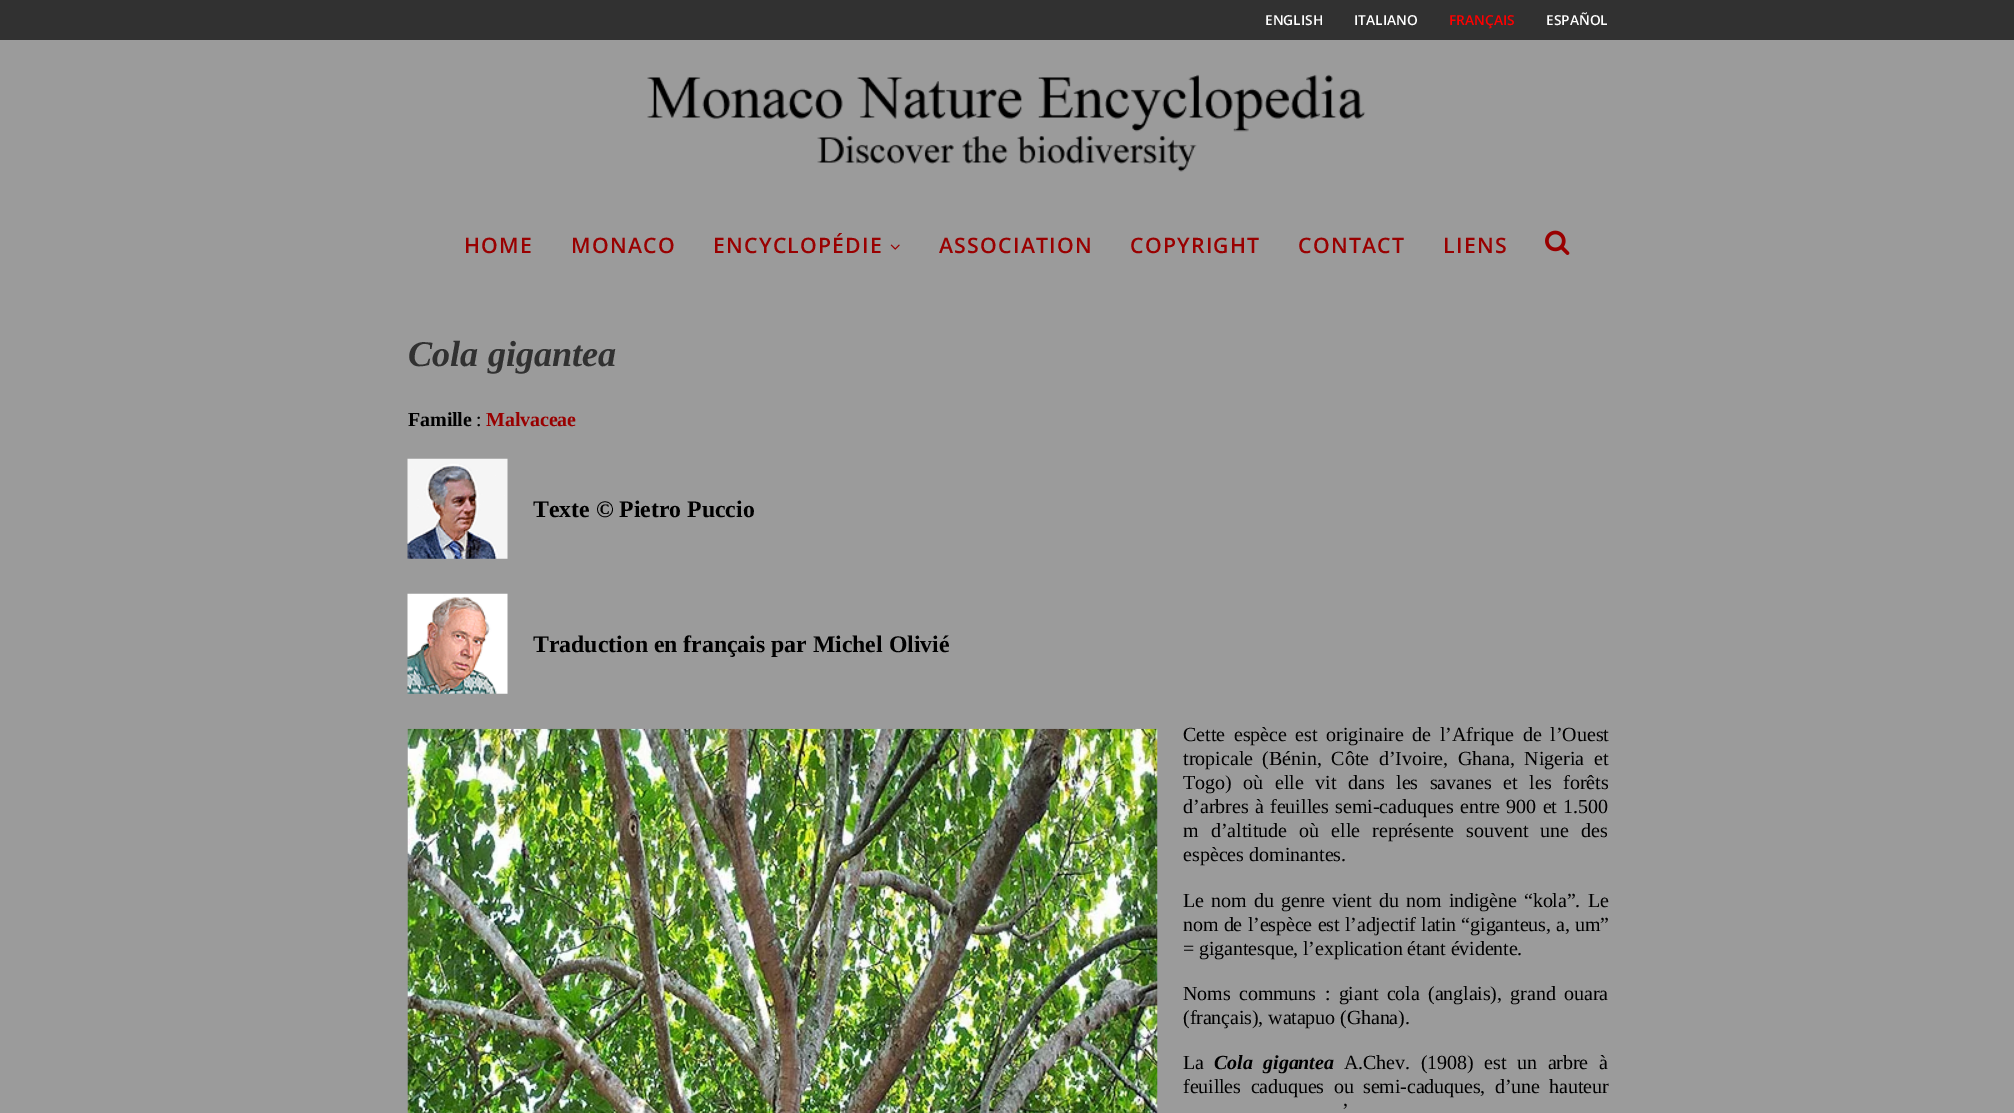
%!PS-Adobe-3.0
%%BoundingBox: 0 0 2014 1113
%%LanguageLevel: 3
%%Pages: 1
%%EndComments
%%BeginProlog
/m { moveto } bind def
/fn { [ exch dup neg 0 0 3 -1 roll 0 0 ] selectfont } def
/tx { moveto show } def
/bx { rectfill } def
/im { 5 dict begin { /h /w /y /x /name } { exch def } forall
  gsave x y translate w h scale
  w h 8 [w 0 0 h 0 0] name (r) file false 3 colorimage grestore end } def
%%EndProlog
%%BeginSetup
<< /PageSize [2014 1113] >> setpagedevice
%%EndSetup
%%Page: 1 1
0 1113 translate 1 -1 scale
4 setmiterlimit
0.608 setgray
0 0 2014 1113 bx
0.192 setgray
0 0 2014 40 bx
/OpenSans-SemiBold 13.75 fn
1 setgray
(ENGLISH) 1265 25 tx
(ITALIANO) 1354 25 tx
1 0 0 setrgbcolor
(FRANÇAIS) 1449 25 tx
1 setgray
(ESPAÑOL) 1546 25 tx
(image0.raw) 647 74 719 98 im
/OpenSans-SemiBold 21.25 fn
0.6 0 0 setrgbcolor
464 253 m 1.25 0 (HOME) ashow
571 253 m 1.25 0 (MONACO) ashow
713 253 m 1.25 0 (ENCYCLOPÉDIE) ashow
(image1.raw) 890 244 10 6 im
939 253 m 1.25 0 (ASSOCIATION) ashow
1130 253 m 1.25 0 (COPYRIGHT) ashow
1298 253 m 1.25 0 (CONTACT) ashow
1443 253 m 1.25 0 (LIENS) ashow
(image2.raw) 1545 230 25 25 im
/LiberationSerif-BoldItalic 36.25 fn
0.192 setgray
(Cola gigantea) 408 366 tx
/LiberationSerif-Bold 20 fn
0 setgray
408 426 m -0.12 0 (Famille) ashow
/LiberationSerif-Regular 20 fn
476 426 m -0.12 0 (:) ashow
/LiberationSerif-Bold 20 fn
0.6 0 0 setrgbcolor
486 426 m -0.12 0 (Malvaceae) ashow
(image3.raw) 407 458 101 101 im
/LiberationSerif-Bold 23.75 fn
0 setgray
(Texte © Pietro Puccio) 533 517 tx
(image4.raw) 407 593 101 101 im
(Traduction en français par Michel Olivié) 533 652 tx
(image5.raw) 407 728 751 385 im
/LiberationSerif-Regular 20 fn
1183 741 m 3.5 0 32 (Cette espèce est originaire de l’Afrique de l’Ouest) widthshow
1183 765 m 4.5 0 32 (tropicale \(Bénin, Côte d’Ivoire, Ghana, Nigeria et) widthshow
1183 789 m 6.5 0 32 (Togo\) où elle vit dans les savanes et les forêts) widthshow
1183 813 m 1.25 0 32 (d’arbres à feuilles semi-caduques entre 900 et 1.500) widthshow
1183 837 m 7 0 32 (m d’altitude où elle représente souvent une des) widthshow
(espèces dominantes.) 1183 861 tx
1183 907 m 2.5 0 32 -0.12 0 (Le nom du genre vient du nom indigène “kola”. Le) awidthshow
1183 931 m 0.5 0 32 -0.12 0 (nom de l’espèce est l’adjectif latin “giganteus, a, um”) awidthshow
1183 955 m -0.12 0 (= gigantesque, l’explication étant évidente.) ashow
1183 1000 m 3.75 0 32 -0.12 0 (Noms communs : giant cola \(anglais\), grand ouara) awidthshow
1183 1024 m -0.12 0 (\(français\), watapuo \(Ghana\).) ashow
1183 1069 m -0.12 0 (La) ashow
/LiberationSerif-BoldItalic 20 fn
1214 1069 m 6 0 32 -0.12 0 (Cola gigantea) awidthshow
/LiberationSerif-Regular 20 fn
1344 1069 m 6 0 32 -0.12 0 (A.Chev. \(1908\) est un arbre à) awidthshow
1183 1093 m 4.75 0 32 -0.12 0 (feuilles caduques ou semi-caduques, d’une hauteur) awidthshow
1342 1117 m 4 0 32 -0.12 0 (’) awidthshow
showpage
%%EOF
